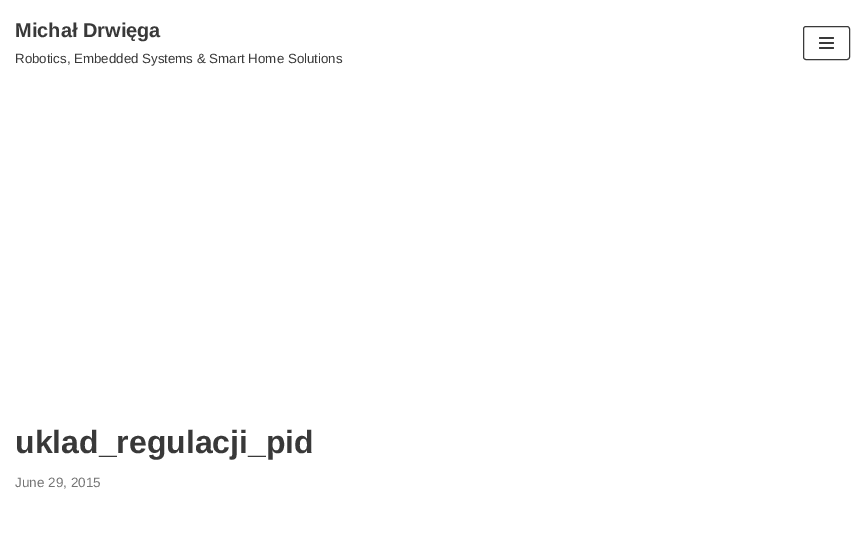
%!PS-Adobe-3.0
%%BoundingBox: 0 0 865 537
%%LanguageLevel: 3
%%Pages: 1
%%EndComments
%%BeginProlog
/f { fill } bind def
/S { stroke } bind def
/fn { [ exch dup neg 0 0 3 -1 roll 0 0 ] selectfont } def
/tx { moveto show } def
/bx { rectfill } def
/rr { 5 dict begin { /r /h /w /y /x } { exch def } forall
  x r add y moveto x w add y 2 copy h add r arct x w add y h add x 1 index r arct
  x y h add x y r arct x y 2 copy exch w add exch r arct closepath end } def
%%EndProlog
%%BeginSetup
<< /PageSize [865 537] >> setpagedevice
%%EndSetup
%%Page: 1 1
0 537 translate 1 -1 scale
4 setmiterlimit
1 setgray
0 0 865 537 bx
/LiberationSans-Bold 20 fn
0.224 setgray
(Michał Drwięga) 15 37 tx
/LiberationSans-Regular 13.3 fn
(Robotics, Embedded Systems & Smart Home Solutions) 15 63 tx
803.5 26.5 46 33 2.5 rr S
819 37 15 2 1 rr f
819 42 15 2 1 rr f
819 47 15 2 1 rr f
/LiberationSans-Bold 32 fn
(uklad_regulacji_pid) 15 453 tx
/LiberationSans-Regular 13.5 fn
0.455 setgray
(June 29, 2015) 15 487 tx
showpage
%%EOF
